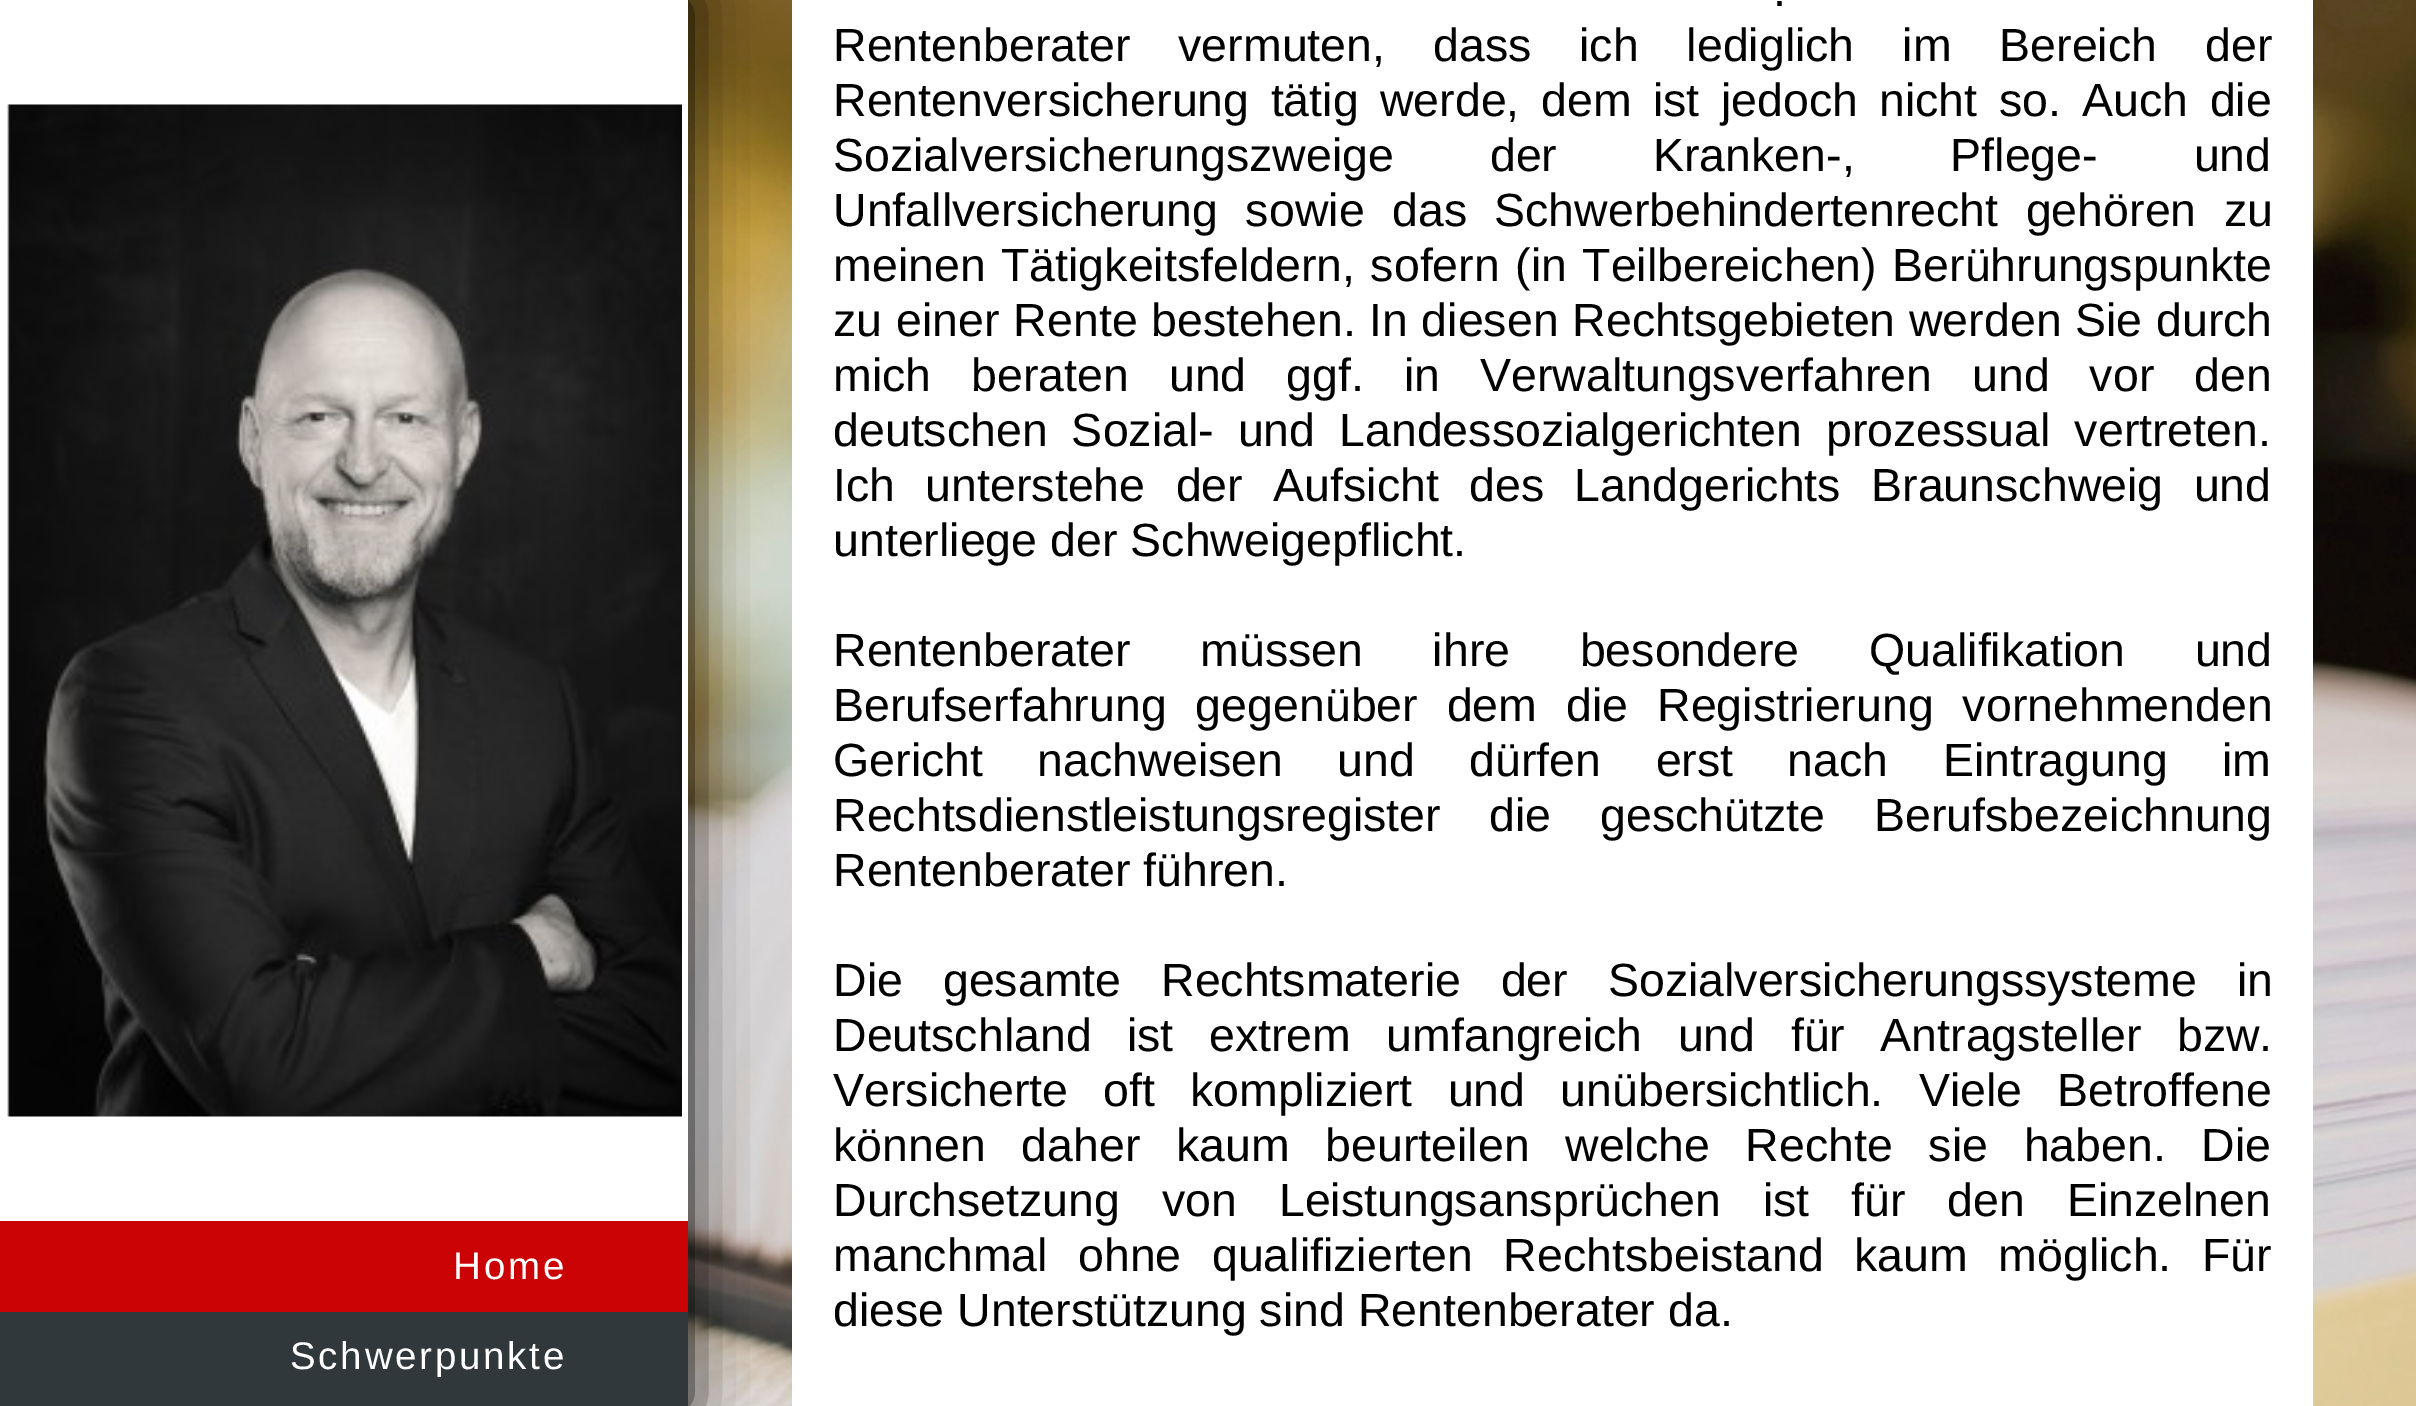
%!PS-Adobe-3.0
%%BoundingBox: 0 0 2416 1406
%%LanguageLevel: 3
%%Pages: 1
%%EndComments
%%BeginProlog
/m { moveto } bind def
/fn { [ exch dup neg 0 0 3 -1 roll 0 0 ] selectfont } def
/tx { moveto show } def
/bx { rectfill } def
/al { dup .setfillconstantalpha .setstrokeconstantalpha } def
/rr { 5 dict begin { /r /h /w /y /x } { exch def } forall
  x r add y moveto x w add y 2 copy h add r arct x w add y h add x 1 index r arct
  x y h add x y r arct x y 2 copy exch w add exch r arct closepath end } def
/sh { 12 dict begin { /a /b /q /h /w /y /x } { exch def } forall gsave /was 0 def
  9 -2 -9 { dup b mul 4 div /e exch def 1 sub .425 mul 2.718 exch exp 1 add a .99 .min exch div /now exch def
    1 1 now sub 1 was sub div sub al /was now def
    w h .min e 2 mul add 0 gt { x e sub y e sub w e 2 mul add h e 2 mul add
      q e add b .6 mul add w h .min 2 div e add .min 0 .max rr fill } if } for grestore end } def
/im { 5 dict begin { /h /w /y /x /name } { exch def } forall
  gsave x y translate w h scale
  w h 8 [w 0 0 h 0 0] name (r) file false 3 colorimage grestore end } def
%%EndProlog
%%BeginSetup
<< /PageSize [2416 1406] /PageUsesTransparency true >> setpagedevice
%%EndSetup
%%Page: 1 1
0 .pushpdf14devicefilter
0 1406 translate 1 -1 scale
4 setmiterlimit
1 setgray
0 0 2416 1406 bx
(image0.raw) 688 0 1728 1406 im
0 setgray
0 0 688 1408 0 27.5 1 sh
1 setgray
792 0 1521 1406 bx
/LiberationSans-Regular 46.5 fn
0 setgray
1773 6 m 11 0 32 (.) widthshow
833 61 m 35 0 32 (Rentenberater vermuten, dass ich lediglich im Bereich der) widthshow
833 116 m 8.5 0 32 (Rentenversicherung tätig werde, dem ist jedoch nicht so. Auch die) widthshow
833 171 m 83 0 32 (Sozialversicherungszweige der Kranken-, Pflege- und) widthshow
833 226 m 14.5 0 32 (Unfallversicherung sowie das Schwerbehindertenrecht gehören zu) widthshow
833 281 m 2.5 0 32 (meinen Tätigkeitsfeldern, sofern \(in Teilbereichen\) Berührungspunkte) widthshow
833 336 m 1 0 32 (zu einer Rente bestehen.) widthshow
1369 336 m 0.75 0 32 (In diesen Rechtsgebieten werden Sie durch) widthshow
833 391 m 27 0 32 (mich beraten und ggf. in Verwaltungsverfahren und vor den) widthshow
833 446 m 11 0 32 (deutschen Sozial- und Landessozialgerichten prozessual vertreten.) widthshow
833 501 m 17.5 0 32 (Ich unterstehe der Aufsicht des Landgerichts Braunschweig und) widthshow
(unterliege der Schweigepflicht.) 833 556 tx
833 666 m 56.75 0 32 (Rentenberater müssen ihre besondere Qualifikation und) widthshow
833 721 m 16 0 32 (Berufserfahrung gegenüber dem die Registrierung vornehmenden) widthshow
833 776 m 41.5 0 32 (Gericht nachweisen und dürfen erst nach Eintragung im) widthshow
833 831 m 36 0 32 (Rechtsdienstleistungsregister die geschützte Berufsbezeichnung) widthshow
(Rentenberater führen.) 833 886 tx
833 996 m 27 0 32 (Die gesamte Rechtsmaterie der Sozialversicherungssysteme in) widthshow
833 1051 m 22.5 0 32 (Deutschland ist extrem umfangreich und für Antragsteller bzw.) widthshow
833 1106 m 22.25 0 32 (Versicherte oft kompliziert und unübersichtlich. Viele Betroffene) widthshow
833 1161 m 22.75 0 32 (können daher kaum beurteilen welche Rechte sie haben. Die) widthshow
833 1216 m 29 0 32 (Durchsetzung von Leistungsansprüchen ist für den Einzelnen) widthshow
833 1271 m 17.5 0 32 (manchmal ohne qualifizierten Rechtsbeistand kaum möglich. Für) widthshow
(diese Unterstützung sind Rentenberater da.) 833 1326 tx
1 setgray
0 0 688 1221 bx
(image1.raw) 7 104 675 1013 im
0.188 0.22 0.235 setrgbcolor
0 1312 688 94 bx
0.8 0.012 0.02 setrgbcolor
0 1221 688 91 bx
/LiberationSans-Regular 38.5 fn
1 setgray
453 1279 m 2.75 0 (Home) ashow
290 1369 m 2.75 0 (Schwerpunkte) ashow
.poppdf14devicefilter showpage
%%EOF
